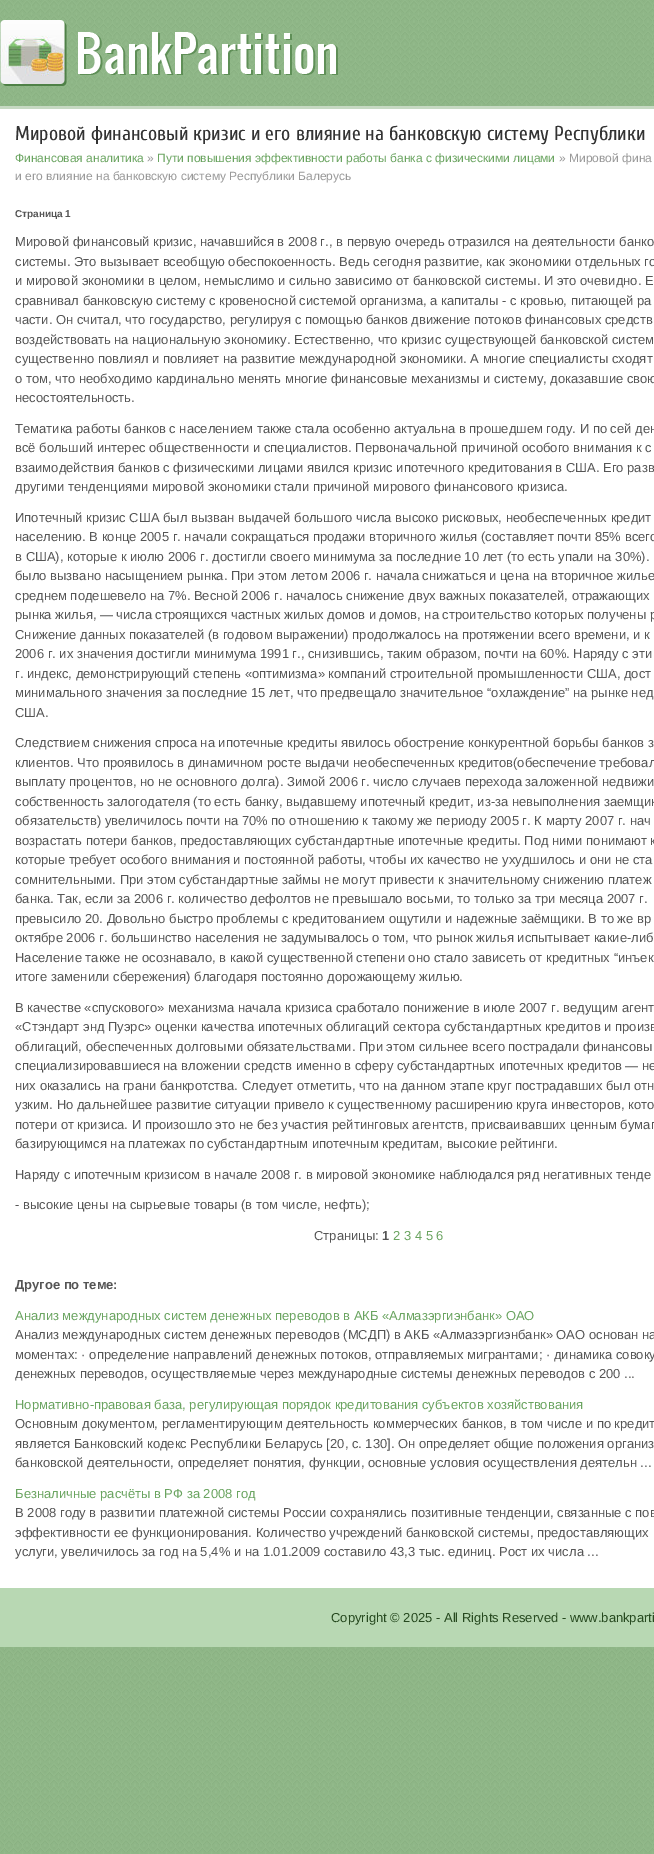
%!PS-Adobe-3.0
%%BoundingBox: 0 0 654 1854
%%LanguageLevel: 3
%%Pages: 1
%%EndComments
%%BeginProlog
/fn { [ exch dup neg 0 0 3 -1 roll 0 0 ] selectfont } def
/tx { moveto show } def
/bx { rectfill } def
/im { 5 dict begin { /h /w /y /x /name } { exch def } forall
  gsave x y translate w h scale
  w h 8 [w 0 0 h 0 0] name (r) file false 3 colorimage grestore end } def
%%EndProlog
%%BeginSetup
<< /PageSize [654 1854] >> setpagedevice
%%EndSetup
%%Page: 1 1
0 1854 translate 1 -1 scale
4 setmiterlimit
1 setgray
0 0 654 1854 bx
(image0.raw) 0 0 654 1854 im
(image1.raw) 0 20 338 66 im
0 109 654 1479 bx
0.776 0.851 0.761 setrgbcolor
0 106 654 3 bx
/Cuprum-Regular 20 fn
0.2 setgray
(Мировой финансовый кризис и его влияние на банковскую систему Республики) 15 140 tx
/LiberationSans-Regular 12 fn
0.416 0.643 0.376 setrgbcolor
(Финансовая аналитика) 15 162 tx
0.6 setgray
(») 147 162 tx
0.416 0.643 0.376 setrgbcolor
(Пути повышения эффективности работы банка с физическими лицами) 157 162 tx
0.6 setgray
(» Мировой фина) 559 162 tx
(и его влияние на банковскую систему Республики Балерусь) 15 180 tx
/LiberationSans-Bold 10 fn
0.333 setgray
(Страница 1) 15 217 tx
/LiberationSans-Regular 13 fn
(Мировой финансовый кризис, начавшийся в 2008 г., в первую очередь отразился на деятельности банко) 15 246 tx
(системы. Это вызывает всеобщую обеспокоенность. Ведь сегодня развитие, как экономики отдельных го) 15 266 tx
(и мировой экономики в целом, немыслимо и сильно зависимо от банковской системы. И это очевидно. Е) 15 285 tx
(сравнивал банковскую систему с кровеносной системой организма, а капиталы - с кровью, питающей ра) 15 305 tx
(части. Он считал, что государство, регулируя с помощью банков движение потоков финансовых средств) 15 324 tx
(воздействовать на национальную экономику. Естественно, что кризис существующей банковской систем) 15 344 tx
(существенно повлиял и повлияет на развитие международной экономики. А многие специалисты сходят) 15 363 tx
(о том, что необходимо кардинально менять многие финансовые механизмы и систему, доказавшие свою) 15 383 tx
(несостоятельность.) 15 402 tx
(Тематика работы банков с населением также стала особенно актуальна в прошедшем году. И по сей ден) 15 433 tx
(всё больший интерес общественности и специалистов. Первоначальной причиной особого внимания к с) 15 452 tx
(взаимодействия банков с физическими лицами явился кризис ипотечного кредитования в США. Его разв) 15 472 tx
(другими тенденциями мировой экономики стали причиной мирового финансового кризиса.) 15 491 tx
(Ипотечный кризис США был вызван выдачей большого числа высоко рисковых, необеспеченных кредит) 15 522 tx
(населению. В конце 2005 г. начали сокращаться продажи вторичного жилья \(составляет почти 85% всего) 15 541 tx
(в США\), которые к июлю 2006 г. достигли своего минимума за последние 10 лет \(то есть упали на 30%\).) 15 561 tx
(было вызвано насыщением рынка. При этом летом 2006 г. начала снижаться и цена на вторичное жилье) 15 580 tx
(среднем подешевело на 7%. Весной 2006 г. началось снижение двух важных показателей, отражающих) 15 600 tx
(рынка жилья, — числа строящихся частных жилых домов и домов, на строительство которых получены р) 15 619 tx
(Снижение данных показателей \(в годовом выражении\) продолжалось на протяжении всего времени, и к) 15 639 tx
(2006 г. их значения достигли минимума 1991 г., снизившись, таким образом, почти на 60%. Наряду с эти) 15 658 tx
(г. индекс, демонстрирующий степень «оптимизма» компаний строительной промышленности США, дост) 15 678 tx
(минимального значения за последние 15 лет, что предвещало значительное “охлаждение” на рынке нед) 15 697 tx
(США.) 15 717 tx
(Следствием снижения спроса на ипотечные кредиты явилось обострение конкурентной борьбы банков з) 15 747 tx
(клиентов. Что проявилось в динамичном росте выдачи необеспеченных кредитов\(обеспечение требовал) 15 767 tx
(выплату процентов, но не основного долга\). Зимой 2006 г. число случаев перехода заложенной недвижи) 15 786 tx
(собственность залогодателя \(то есть банку, выдавшему ипотечный кредит, из-за невыполнения заемщик) 15 806 tx
(обязательств\) увеличилось почти на 70% по отношению к такому же периоду 2005 г. К марту 2007 г. нач) 15 825 tx
(возрастать потери банков, предоставляющих субстандартные ипотечные кредиты. Под ними понимают к) 15 845 tx
(которые требует особого внимания и постоянной работы, чтобы их качество не ухудшилось и они не ста) 15 864 tx
(сомнительными. При этом субстандартные займы не могут привести к значительному снижению платеж) 15 884 tx
(банка. Так, если за 2006 г. количество дефолтов не превышало восьми, то только за три месяца 2007 г.) 15 903 tx
(превысило 20. Довольно быстро проблемы с кредитованием ощутили и надежные заёмщики. В то же вр) 15 923 tx
(октябре 2006 г. большинство населения не задумывалось о том, что рынок жилья испытывает какие-либ) 15 942 tx
(Население также не осознавало, в какой существенной степени оно стало зависеть от кредитных “инъек) 15 962 tx
(итоге заменили сбережения\) благодаря постоянно дорожающему жилью.) 15 981 tx
(В качестве «спускового» механизма начала кризиса сработало понижение в июле 2007 г. ведущим агент) 15 1012 tx
(«Стэндарт энд Пуэрс» оценки качества ипотечных облигаций сектора субстандартных кредитов и произв) 15 1031 tx
(облигаций, обеспеченных долговыми обязательствами. При этом сильнее всего пострадали финансовы) 15 1051 tx
(специализировавшиеся на вложении средств именно в сферу субстандартных ипотечных кредитов — не) 15 1070 tx
(них оказались на грани банкротства. Следует отметить, что на данном этапе круг пострадавших был отн) 15 1090 tx
(узким. Но дальнейшее развитие ситуации привело к существенному расширению круга инвесторов, кото) 15 1109 tx
(потери от кризиса. И произошло это не без участия рейтинговых агентств, присваивавших ценным бумаг) 15 1129 tx
(базирующимся на платежах по субстандартным ипотечным кредитам, высокие рейтинги.) 15 1148 tx
(Наряду с ипотечным кризисом в начале 2008 г. в мировой экономике наблюдался ряд негативных тенде) 15 1179 tx
(- высокие цены на сырьевые товары \(в том числе, нефть\);) 15 1209 tx
(Страницы:) 314 1240 tx
/LiberationSans-Bold 13 fn
(1) 382 1240 tx
/LiberationSans-Regular 13 fn
0.416 0.643 0.376 setrgbcolor
(2 3 4 5 6) 393 1240 tx
/LiberationSans-Bold 13 fn
0.333 setgray
(Другое по теме:) 15 1289 tx
/LiberationSans-Regular 13 fn
0.416 0.643 0.376 setrgbcolor
(Анализ международных систем денежных переводов в АКБ «Алмазэргиэнбанк» ОАО) 15 1320 tx
0.333 setgray
(Анализ международных систем денежных переводов \(МСДП\) в АКБ «Алмазэргиэнбанк» ОАО основан на) 15 1339 tx
(моментах: · определение направлений денежных потоков, отправляемых мигрантами; · динамика совоку) 15 1359 tx
(денежных переводов, осуществляемые через международные системы денежных переводов с 200 ...) 15 1378 tx
0.416 0.643 0.376 setrgbcolor
(Нормативно-правовая база, регулирующая порядок кредитования субъектов хозяйствования) 15 1409 tx
0.333 setgray
(Основным документом, регламентирующим деятельность коммерческих банков, в том числе и по кредит) 15 1428 tx
(является Банковский кодекс Республики Беларусь [20, с. 130]. Он определяет общие положения организ) 15 1448 tx
(банковской деятельности, определяет понятия, функции, основные условия осуществления деятельн ...) 15 1467 tx
0.416 0.643 0.376 setrgbcolor
(Безналичные расчёты в РФ за 2008 год) 15 1498 tx
0.333 setgray
(В 2008 году в развитии платежной системы России сохранялись позитивные тенденции, связанные с пов) 15 1517 tx
(эффективности ее функционирования. Количество учреждений банковской системы, предоставляющих) 15 1537 tx
(услуги, увеличилось за год на 5,4% и на 1.01.2009 составило 43,3 тыс. единиц. Рост их числа ...) 15 1556 tx
0.722 0.847 0.702 setrgbcolor
0 1588 654 59 bx
0.149 0.286 0.122 setrgbcolor
(Copyright © 2025 - All Rights Reserved - www.bankparti) 331 1622 tx
showpage
%%EOF
